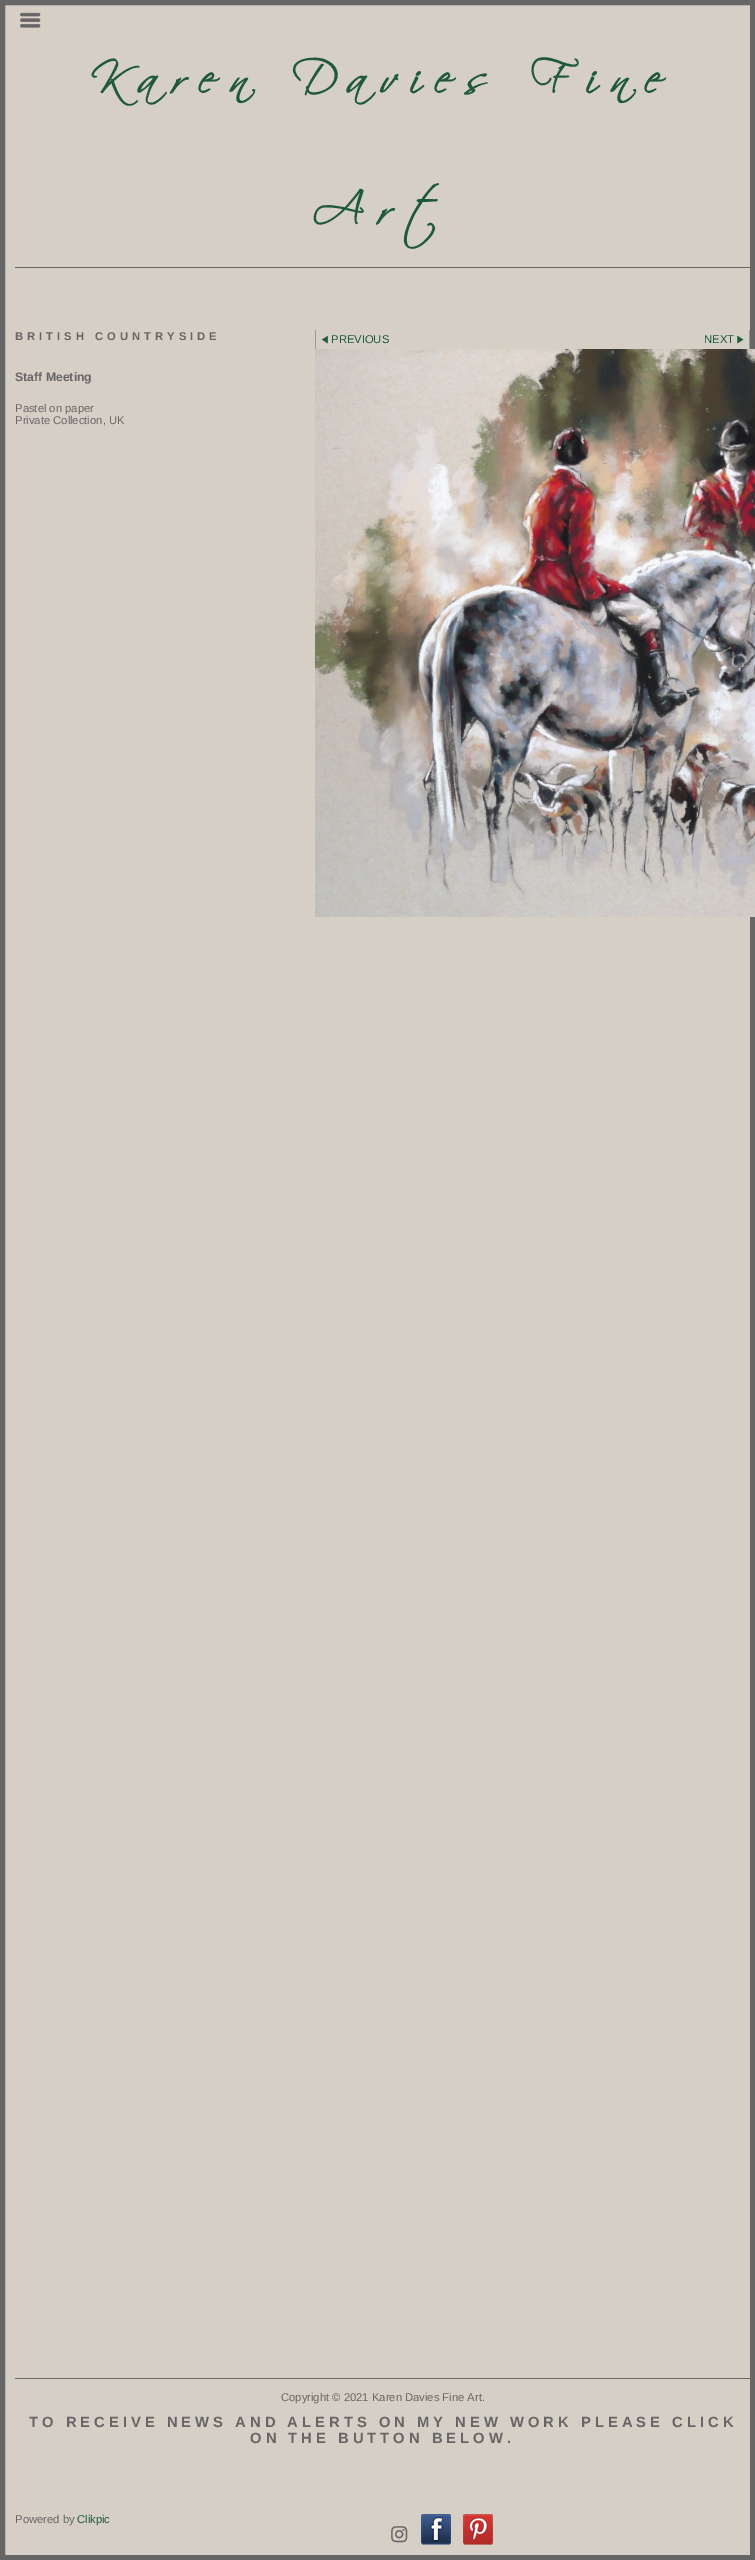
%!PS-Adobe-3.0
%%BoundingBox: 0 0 755 2560
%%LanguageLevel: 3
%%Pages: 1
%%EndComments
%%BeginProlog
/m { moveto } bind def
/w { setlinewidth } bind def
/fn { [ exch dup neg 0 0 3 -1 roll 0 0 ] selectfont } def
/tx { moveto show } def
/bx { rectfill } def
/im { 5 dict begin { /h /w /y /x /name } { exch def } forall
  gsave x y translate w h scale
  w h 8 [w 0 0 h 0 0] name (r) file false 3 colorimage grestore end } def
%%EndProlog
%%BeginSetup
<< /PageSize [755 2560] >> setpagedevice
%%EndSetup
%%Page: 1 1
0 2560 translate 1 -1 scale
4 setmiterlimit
0.839 0.812 0.773 setrgbcolor
0 0 755 2560 bx
0.4 setgray
5 w
2.5 2.5 750 2555 rectstroke
15 267 735 1 bx
(image0.raw) 20 12 21 16 im
/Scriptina-Bold 44.75 fn
0.118 0.349 0.235 setrgbcolor
90 93 m 15 0 (Karen Davies Fine) ashow
312 224 m 15 0 (Art) ashow
/LiberationSans-Bold 11.25 fn
0.4 setgray
15 340 m 4 0 (BRITISH COUNTRYSIDE) ashow
/LiberationSans-Bold 12.25 fn
(Staff Meeting) 15 381 tx
/LiberationSans-Regular 11.25 fn
(Pastel on paper) 15 412 tx
(Private Collection, UK) 15 424 tx
0.6 setgray
315 330 1 19 bx
(image1.raw) 321 335 7 9 im
0.118 0.349 0.235 setrgbcolor
(PREVIOUS) 331 343 tx
0.6 setgray
749 330 1 19 bx
0.118 0.349 0.235 setrgbcolor
(NEXT) 704 343 tx
(image2.raw) 737 335 7 9 im
(image3.raw) 315 349 440 568 im
0.4 setgray
15 2378 735 1 bx
(Copyright © 2021 Karen Davies Fine Art.) 281 2401 tx
/LiberationSans-Bold 14.8 fn
29 2427 m 4 0 (TO RECEIVE NEWS AND ALERTS ON MY NEW WORK PLEASE CLICK) ashow
250 2443 m 4 0 (ON THE BUTTON BELOW.) ashow
/LiberationSans-Regular 11.25 fn
(Powered by) 15 2523 tx
0.118 0.349 0.235 setrgbcolor
(Clikpic) 77 2523 tx
(image4.raw) 391 2526 17 17 im
(image5.raw) 421 2514 30 31 im
(image6.raw) 463 2514 30 31 im
showpage
%%EOF
